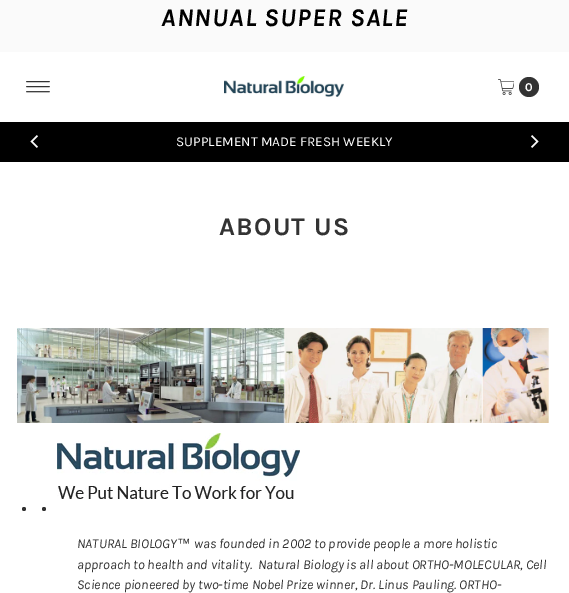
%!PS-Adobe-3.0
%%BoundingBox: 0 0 569 593
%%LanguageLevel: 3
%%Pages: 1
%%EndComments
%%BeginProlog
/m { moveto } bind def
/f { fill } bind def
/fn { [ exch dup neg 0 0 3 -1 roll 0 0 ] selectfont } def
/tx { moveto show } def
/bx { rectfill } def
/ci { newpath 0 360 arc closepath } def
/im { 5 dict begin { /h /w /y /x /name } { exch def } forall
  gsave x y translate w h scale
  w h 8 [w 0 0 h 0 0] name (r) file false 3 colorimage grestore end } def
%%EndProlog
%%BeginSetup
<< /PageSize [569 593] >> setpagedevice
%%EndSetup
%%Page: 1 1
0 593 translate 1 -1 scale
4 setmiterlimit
1 setgray
0 0 569 593 bx
0.98 setgray
0 0 569 52 bx
/Karla-BoldItalic 25.5 fn
0 setgray
161 26 m 1.25 0 (ANNUAL SUPER SALE) ashow
(image0.raw) 26 81 24 12 im
(image1.raw) 224 76 120 21 im
(image2.raw) 498 79 16 16 im
0.2 setgray
529 87 10 ci f
/Karla-Bold 12 fn
1 setgray
(0) 525 91 tx
0 setgray
0 122 569 40 bx
(image3.raw) 30 135 8 13 im
/Karla-Regular 13.6 fn
1 setgray
(SUPPLEMENT MADE FRESH WEEKLY) 176 146 tx
(image4.raw) 531 135 8 13 im
/Karla-Bold 25.5 fn
0.2 setgray
219 235 m 1.25 0 (ABOUT US) ashow
(image5.raw) 17 328 532 95 im
24 509 2 ci f
(image6.raw) 57 433 243 66 im
44 509 2 ci f
/Karla-Italic 13.6 fn
(NATURAL BIOLOGY) 77 548 tx
/LiberationSans-Italic 13.6 fn
(™) 177 548 tx
/Karla-Italic 13.6 fn
(was founded in 2002 to provide people a more holistic) 194 548 tx
(approach to health and vitality.  Natural Biology is all about ORTHO-MOLECULAR, Cell) 77 569 tx
(Science pioneered by two-time Nobel Prize winner, Dr. Linus Pauling. ORTHO-) 77 589 tx
showpage
%%EOF
